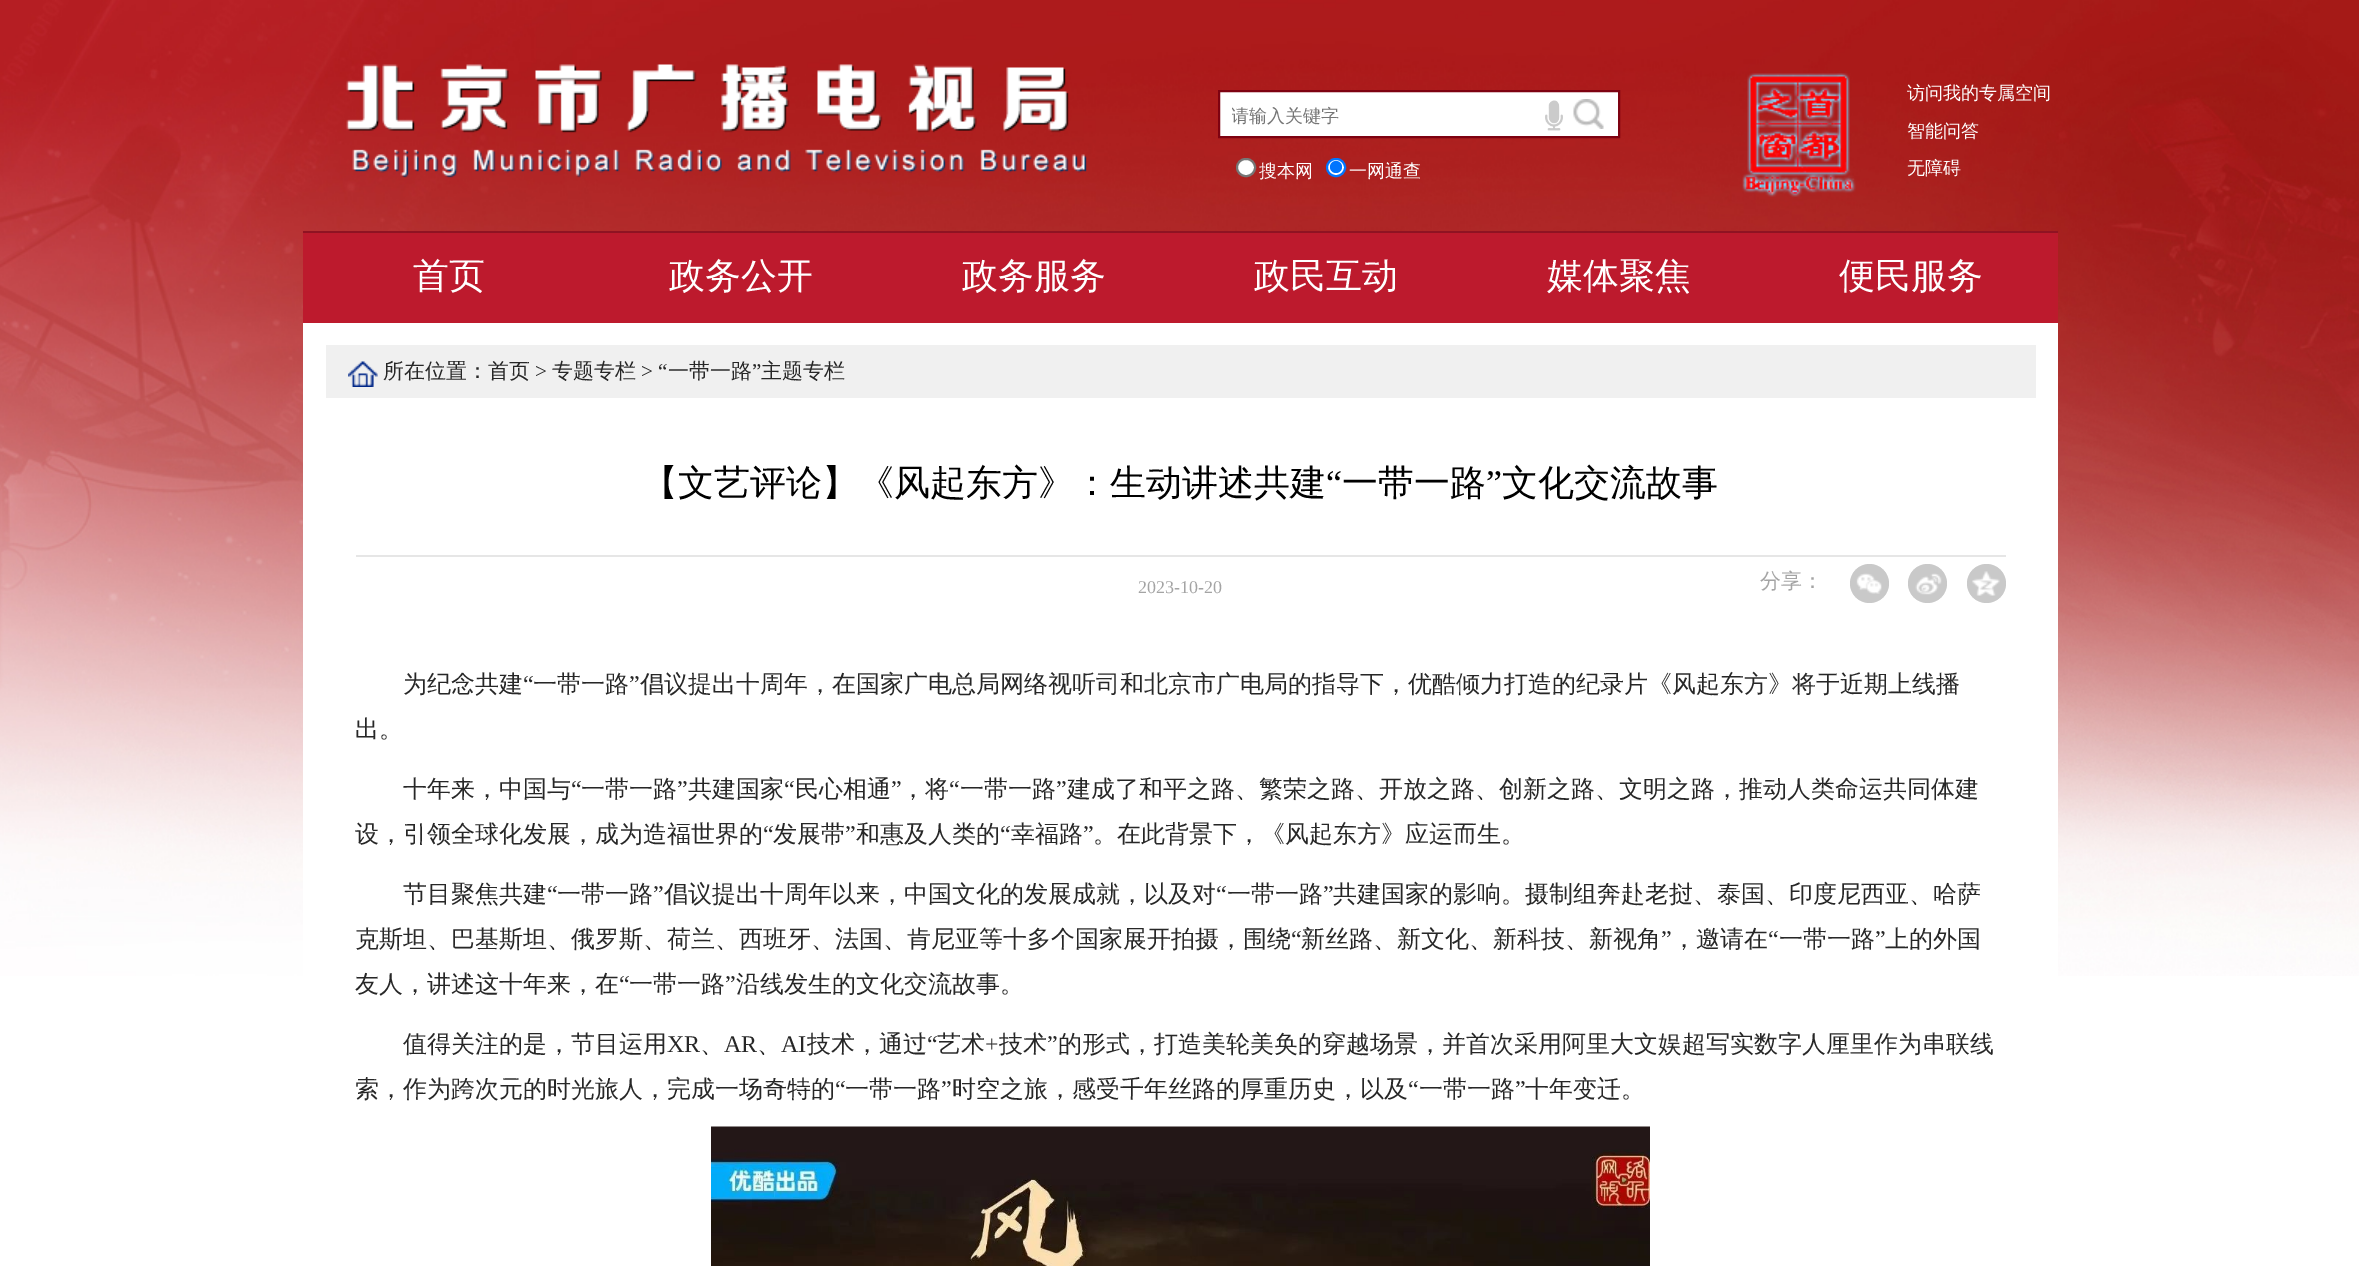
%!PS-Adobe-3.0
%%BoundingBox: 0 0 2359 1266
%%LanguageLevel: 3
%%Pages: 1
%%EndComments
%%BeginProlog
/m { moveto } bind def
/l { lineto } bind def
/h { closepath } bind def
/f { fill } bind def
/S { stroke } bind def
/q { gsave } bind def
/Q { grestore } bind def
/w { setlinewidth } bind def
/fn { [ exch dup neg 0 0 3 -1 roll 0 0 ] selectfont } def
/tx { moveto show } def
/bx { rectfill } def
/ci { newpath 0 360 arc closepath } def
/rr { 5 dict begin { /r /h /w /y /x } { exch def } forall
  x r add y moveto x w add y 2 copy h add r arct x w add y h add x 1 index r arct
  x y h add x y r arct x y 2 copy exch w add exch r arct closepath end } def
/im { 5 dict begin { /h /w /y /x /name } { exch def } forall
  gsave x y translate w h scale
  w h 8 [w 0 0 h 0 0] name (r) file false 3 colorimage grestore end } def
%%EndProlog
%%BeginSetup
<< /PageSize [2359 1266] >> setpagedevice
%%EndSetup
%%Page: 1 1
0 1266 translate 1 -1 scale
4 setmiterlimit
1 setgray
0 0 2359 1266 bx
(image0.raw) 0 0 2359 976 im
(image1.raw) 346 64 741 114 im
1219 91 m 1619 91 l 1619 137 l 1219 137 l h q f Q
0.494 0.008 0.067 setrgbcolor
2 w
S
q
1232 104 255 25 rectclip
/WenQuanYiZenHei-Medium 18 fn
0.459 setgray
(请输入关键字) 1231 122 tx
Q
(image2.raw) 1545 100 18 31 im
(image3.raw) 1573 99 31 30 im
1 setgray
1237 159 18 17 8.5 rr q f Q
0.463 setgray
S
/WenQuanYiZenHei-Medium 18 fn
1 setgray
(搜本网) 1259 177 tx
1327 159 18 17 8.5 rr q f Q
0 0.459 1 setrgbcolor
S
1336 167 6 ci f
1 setgray
(一网通查) 1349 177 tx
(image4.raw) 1742 73 114 124 im
(访问我的专属空间) 1907 99 tx
(智能问答) 1907 137 tx
(无障碍) 1907 174 tx
0.741 0.102 0.176 setrgbcolor
303 233 1755 90 bx
0.561 0.075 0.133 setrgbcolor
303 231 1755 2 bx
/WenQuanYiZenHei-Medium 36 fn
1 setgray
(首页) 413 288 tx
(政务公开) 669 288 tx
(政务服务) 962 288 tx
(政民互动) 1254 288 tx
(媒体聚焦) 1547 288 tx
(便民服务) 1839 288 tx
303 323 1755 653 bx
0.941 setgray
326 345 1710 53 bx
(image5.raw) 348 361 30 26 im
/WenQuanYiZenHei-Medium 21 fn
0.153 setgray
(所在位置：首页) 383 378 tx
/LiberationSerif-Regular 21 fn
(>) 535 378 tx
/WenQuanYiZenHei-Medium 21 fn
(专题专栏) 552 378 tx
/LiberationSerif-Regular 21 fn
(> “) 641 378 tx
/WenQuanYiZenHei-Medium 21 fn
(一带一路) 668 378 tx
/LiberationSerif-Regular 21 fn
(”) 752 378 tx
/WenQuanYiZenHei-Medium 21 fn
(主题专栏) 761 378 tx
0.902 setgray
356 555 1650 2 bx
/WenQuanYiZenHei-Medium 36 fn
0 setgray
(【文艺评论】《风起东方》：生动讲述共建) 642 495 tx
/LiberationSerif-Regular 36 fn
(“) 1326 495 tx
/WenQuanYiZenHei-Medium 36 fn
(一带一路) 1342 495 tx
/LiberationSerif-Regular 36 fn
(”) 1486 495 tx
/WenQuanYiZenHei-Medium 36 fn
(文化交流故事) 1502 495 tx
/LiberationSerif-Regular 18 fn
0.643 setgray
(2023-10-20) 1138 593 tx
/WenQuanYiZenHei-Medium 21 fn
(分享：) 1760 588 tx
0.788 setgray
1869.5 583.5 19.5 ci f
(image6.raw) 1856 573 26 21 im
1927.5 583.5 19.5 ci f
(image7.raw) 1915 573 27 22 im
1986.5 583.5 19.5 ci f
(image8.raw) 1972 571 28 25 im
/WenQuanYiZenHei-Medium 24 fn
0.153 setgray
(为纪念共建) 403 692 tx
/LiberationSerif-Regular 24 fn
(“) 523 692 tx
/WenQuanYiZenHei-Medium 24 fn
(一带一路) 533 692 tx
/LiberationSerif-Regular 24 fn
(”) 629 692 tx
/WenQuanYiZenHei-Medium 24 fn
(倡议提出十周年，在国家广电总局网络视听司和北京市广电局的指导下，优酷倾力打造的纪录片《风起东方》将于近期上线播) 640 692 tx
(出。) 355 737 tx
(十年来，中国与) 403 797 tx
/LiberationSerif-Regular 24 fn
(“) 571 797 tx
/WenQuanYiZenHei-Medium 24 fn
(一带一路) 581 797 tx
/LiberationSerif-Regular 24 fn
(”) 677 797 tx
/WenQuanYiZenHei-Medium 24 fn
(共建国家) 688 797 tx
/LiberationSerif-Regular 24 fn
(“) 784 797 tx
/WenQuanYiZenHei-Medium 24 fn
(民心相通) 795 797 tx
/LiberationSerif-Regular 24 fn
(”) 891 797 tx
/WenQuanYiZenHei-Medium 24 fn
(，将) 901 797 tx
/LiberationSerif-Regular 24 fn
(“) 949 797 tx
/WenQuanYiZenHei-Medium 24 fn
(一带一路) 960 797 tx
/LiberationSerif-Regular 24 fn
(”) 1056 797 tx
/WenQuanYiZenHei-Medium 24 fn
(建成了和平之路、繁荣之路、开放之路、创新之路、文明之路，推动人类命运共同体建) 1067 797 tx
(设，引领全球化发展，成为造福世界的) 355 842 tx
/LiberationSerif-Regular 24 fn
(“) 763 842 tx
/WenQuanYiZenHei-Medium 24 fn
(发展带) 773 842 tx
/LiberationSerif-Regular 24 fn
(”) 845 842 tx
/WenQuanYiZenHei-Medium 24 fn
(和惠及人类的) 856 842 tx
/LiberationSerif-Regular 24 fn
(“) 1000 842 tx
/WenQuanYiZenHei-Medium 24 fn
(幸福路) 1011 842 tx
/LiberationSerif-Regular 24 fn
(”) 1083 842 tx
/WenQuanYiZenHei-Medium 24 fn
(。在此背景下，《风起东方》应运而生。) 1093 842 tx
(节目聚焦共建) 403 902 tx
/LiberationSerif-Regular 24 fn
(“) 547 902 tx
/WenQuanYiZenHei-Medium 24 fn
(一带一路) 557 902 tx
/LiberationSerif-Regular 24 fn
(”) 653 902 tx
/WenQuanYiZenHei-Medium 24 fn
(倡议提出十周年以来，中国文化的发展成就，以及对) 664 902 tx
/LiberationSerif-Regular 24 fn
(“) 1216 902 tx
/WenQuanYiZenHei-Medium 24 fn
(一带一路) 1227 902 tx
/LiberationSerif-Regular 24 fn
(”) 1323 902 tx
/WenQuanYiZenHei-Medium 24 fn
(共建国家的影响。摄制组奔赴老挝、泰国、印度尼西亚、哈萨) 1333 902 tx
(克斯坦、巴基斯坦、俄罗斯、荷兰、西班牙、法国、肯尼亚等十多个国家展开拍摄，围绕) 355 947 tx
/LiberationSerif-Regular 24 fn
(“) 1291 947 tx
/WenQuanYiZenHei-Medium 24 fn
(新丝路、新文化、新科技、新视角) 1301 947 tx
/LiberationSerif-Regular 24 fn
(”) 1661 947 tx
/WenQuanYiZenHei-Medium 24 fn
(，邀请在) 1672 947 tx
/LiberationSerif-Regular 24 fn
(“) 1768 947 tx
/WenQuanYiZenHei-Medium 24 fn
(一带一路) 1779 947 tx
/LiberationSerif-Regular 24 fn
(”) 1875 947 tx
/WenQuanYiZenHei-Medium 24 fn
(上的外国) 1885 947 tx
(友人，讲述这十年来，在) 355 992 tx
/LiberationSerif-Regular 24 fn
(“) 619 992 tx
/WenQuanYiZenHei-Medium 24 fn
(一带一路) 629 992 tx
/LiberationSerif-Regular 24 fn
(”) 725 992 tx
/WenQuanYiZenHei-Medium 24 fn
(沿线发生的文化交流故事。) 736 992 tx
(值得关注的是，节目运用) 403 1052 tx
/LiberationSerif-Regular 24 fn
(XR) 667 1052 tx
(AR) 724 1052 tx
(AI) 781 1052 tx
/WenQuanYiZenHei-Medium 24 fn
(技术，通过) 807 1052 tx
/LiberationSerif-Regular 24 fn
(“) 927 1052 tx
/WenQuanYiZenHei-Medium 24 fn
(艺术) 937 1052 tx
/LiberationSerif-Regular 24 fn
(+) 985 1052 tx
/WenQuanYiZenHei-Medium 24 fn
(技术) 999 1052 tx
/LiberationSerif-Regular 24 fn
(”) 1047 1052 tx
/WenQuanYiZenHei-Medium 24 fn
(的形式，打造美轮美奂的穿越场景，并首次采用阿里大文娱超写实数字人厘里作为串联线) 1058 1052 tx
(、) 700 1052 tx
(、) 757 1052 tx
(索，作为跨次元的时光旅人，完成一场奇特的) 355 1097 tx
/LiberationSerif-Regular 24 fn
(“) 835 1097 tx
/WenQuanYiZenHei-Medium 24 fn
(一带一路) 845 1097 tx
/LiberationSerif-Regular 24 fn
(”) 941 1097 tx
/WenQuanYiZenHei-Medium 24 fn
(时空之旅，感受千年丝路的厚重历史，以及) 952 1097 tx
/LiberationSerif-Regular 24 fn
(“) 1408 1097 tx
/WenQuanYiZenHei-Medium 24 fn
(一带一路) 1419 1097 tx
/LiberationSerif-Regular 24 fn
(”) 1515 1097 tx
/WenQuanYiZenHei-Medium 24 fn
(十年变迁。) 1525 1097 tx
(image9.raw) 711 1126 939 140 im
showpage
%%EOF
